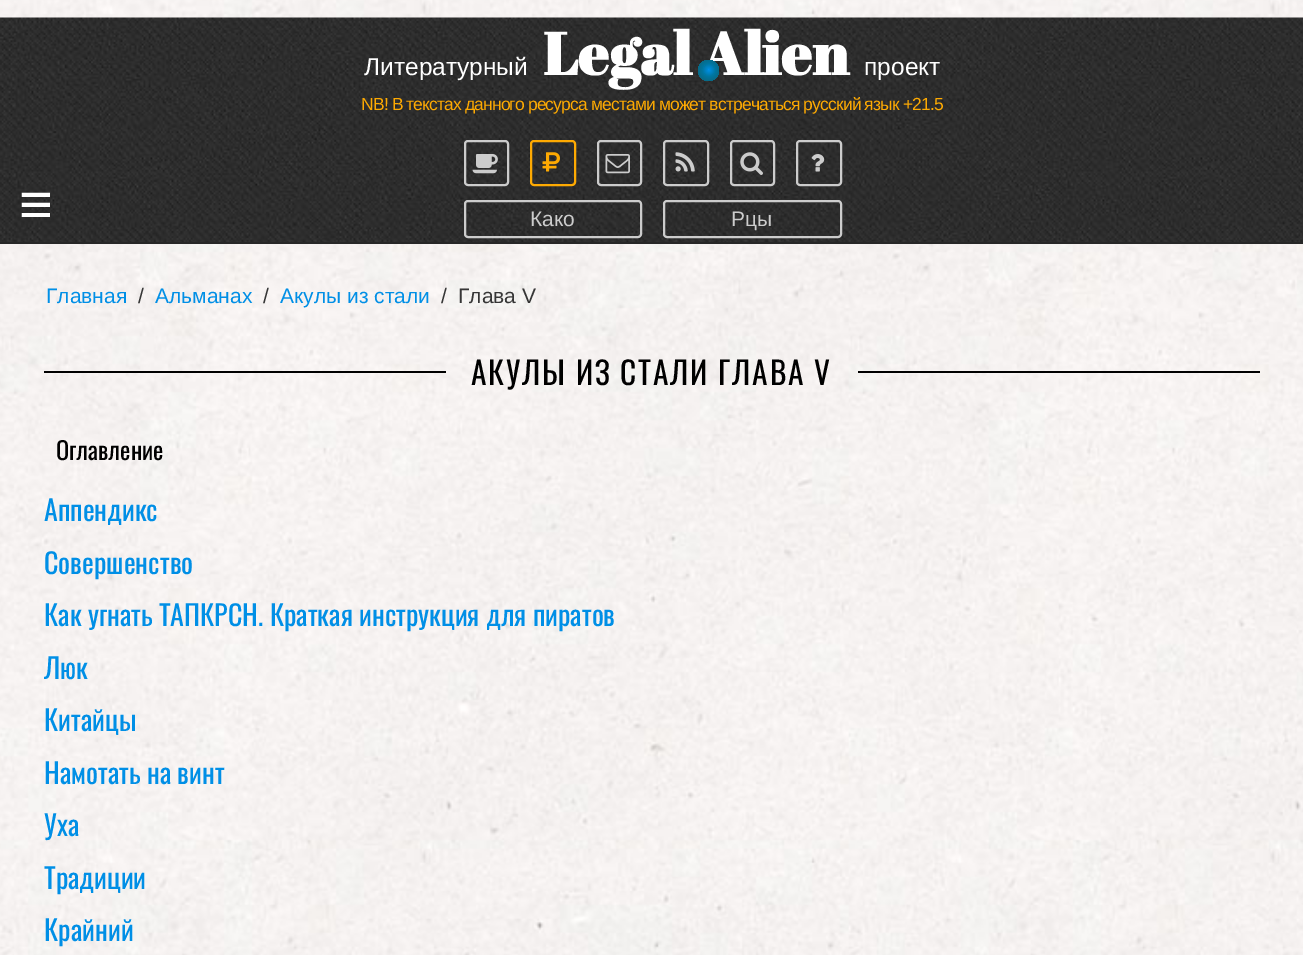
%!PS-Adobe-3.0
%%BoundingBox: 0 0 1303 955
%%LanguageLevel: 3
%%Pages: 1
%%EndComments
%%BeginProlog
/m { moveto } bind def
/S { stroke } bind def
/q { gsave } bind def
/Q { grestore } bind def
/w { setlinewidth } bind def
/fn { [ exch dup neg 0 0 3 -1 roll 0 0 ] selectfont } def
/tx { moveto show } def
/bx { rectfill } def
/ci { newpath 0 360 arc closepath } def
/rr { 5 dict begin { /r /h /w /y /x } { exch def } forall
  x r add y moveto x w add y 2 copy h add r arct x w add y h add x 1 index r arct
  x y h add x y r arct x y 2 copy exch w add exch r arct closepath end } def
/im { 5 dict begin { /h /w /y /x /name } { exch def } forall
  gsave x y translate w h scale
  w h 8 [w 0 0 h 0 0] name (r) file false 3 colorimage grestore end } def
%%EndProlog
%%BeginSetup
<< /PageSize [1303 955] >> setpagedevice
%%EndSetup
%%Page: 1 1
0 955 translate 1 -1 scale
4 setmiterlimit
1 setgray
0 0 1303 955 bx
(image0.raw) 0 0 1303 955 im
(image1.raw) 0 17 1303 225 im
/LiberationSans-Regular 24.5 fn
(Литературный) 364 75 tx
/AbrilFatface-Bold 59.5 fn
(Legal Alien) 543 75 tx
q 708.5 70.5 10.5 ci clip newpath 709 70 translate 15 15 scale
<< /ShadingType 3 /ColorSpace /DeviceRGB /Coords [0 0 0 0 0 1] /Extend [true true] /Function << /FunctionType 3 /Domain [0 1] /Functions [<< /FunctionType 2 /Domain [0 1] /C0 [0 0.561 0.902] /C1 [0 0.463 0.631] /N 1 >> << /FunctionType 2 /Domain [0 1] /C0 [0 0.463 0.631] /C1 [0.063 0.38 0.447] /N 1 >>] /Bounds [0.43] /Encode [0 1 0 1] >> >> shfill Q
/LiberationSans-Regular 24.5 fn
(проект) 864 75 tx
/LiberationSans-Regular 17.5 fn
0.996 0.667 0.008 setrgbcolor
361 110 m -0.88 0 (NB! В текстах данного ресурса местами может встречаться русский язык +21.5) ashow
0.8 setgray
2 w
465 141 43 44 3 rr S
(image2.raw) 472 154 26 20 im
0.996 0.667 0.008 setrgbcolor
531 141 44 44 3 rr S
(image3.raw) 542 152 18 20 im
0.8 setgray
598 141 43 44 3 rr S
(image4.raw) 605 154 25 20 im
664 141 44 44 3 rr S
(image5.raw) 675 152 20 20 im
731 141 43 44 3 rr S
(image6.raw) 740 152 23 23 im
797 141 44 44 3 rr S
(image7.raw) 811 154 14 18 im
0.153 setgray
0 242 1303 2 bx
/LiberationSans-Regular 58 fn
1 setgray
(≡) 19 224 tx
0.8 setgray
465 201 176 36 3 rr S
/LiberationSans-Regular 21 fn
(Како) 530 226 tx
664 201 177 36 3 rr S
(Рцы) 731 226 tx
0 0.561 0.902 setrgbcolor
(Главная) 46 303 tx
0.212 setgray
(/) 138 303 tx
0 0.561 0.902 setrgbcolor
(Альманах) 155 303 tx
0.212 setgray
(/) 263 303 tx
0 0.561 0.902 setrgbcolor
(Акулы из стали) 280 303 tx
0.212 setgray
(/) 441 303 tx
(Глава V) 458 303 tx
0 setgray
44 371 402 2 bx
/Oswald-Regular 31.5 fn
471 385 m 1.75 0 (АКУЛЫ ИЗ СТАЛИ ГЛАВА V) ashow
858 371 402 2 bx
/Oswald-Regular 24.5 fn
(Оглавление) 56 460 tx
/Oswald-Regular 28 fn
0 0.561 0.902 setrgbcolor
(Аппендикс) 44 521 tx
(Совершенство) 44 574 tx
(Как угнать ТАПКРСН. Краткая инструкция для пиратов) 44 626 tx
(Люк) 44 679 tx
(Китайцы) 44 731 tx
(Намотать на винт) 44 784 tx
(Уха) 44 836 tx
(Традиции) 44 889 tx
(Крайний) 44 941 tx
showpage
%%EOF
